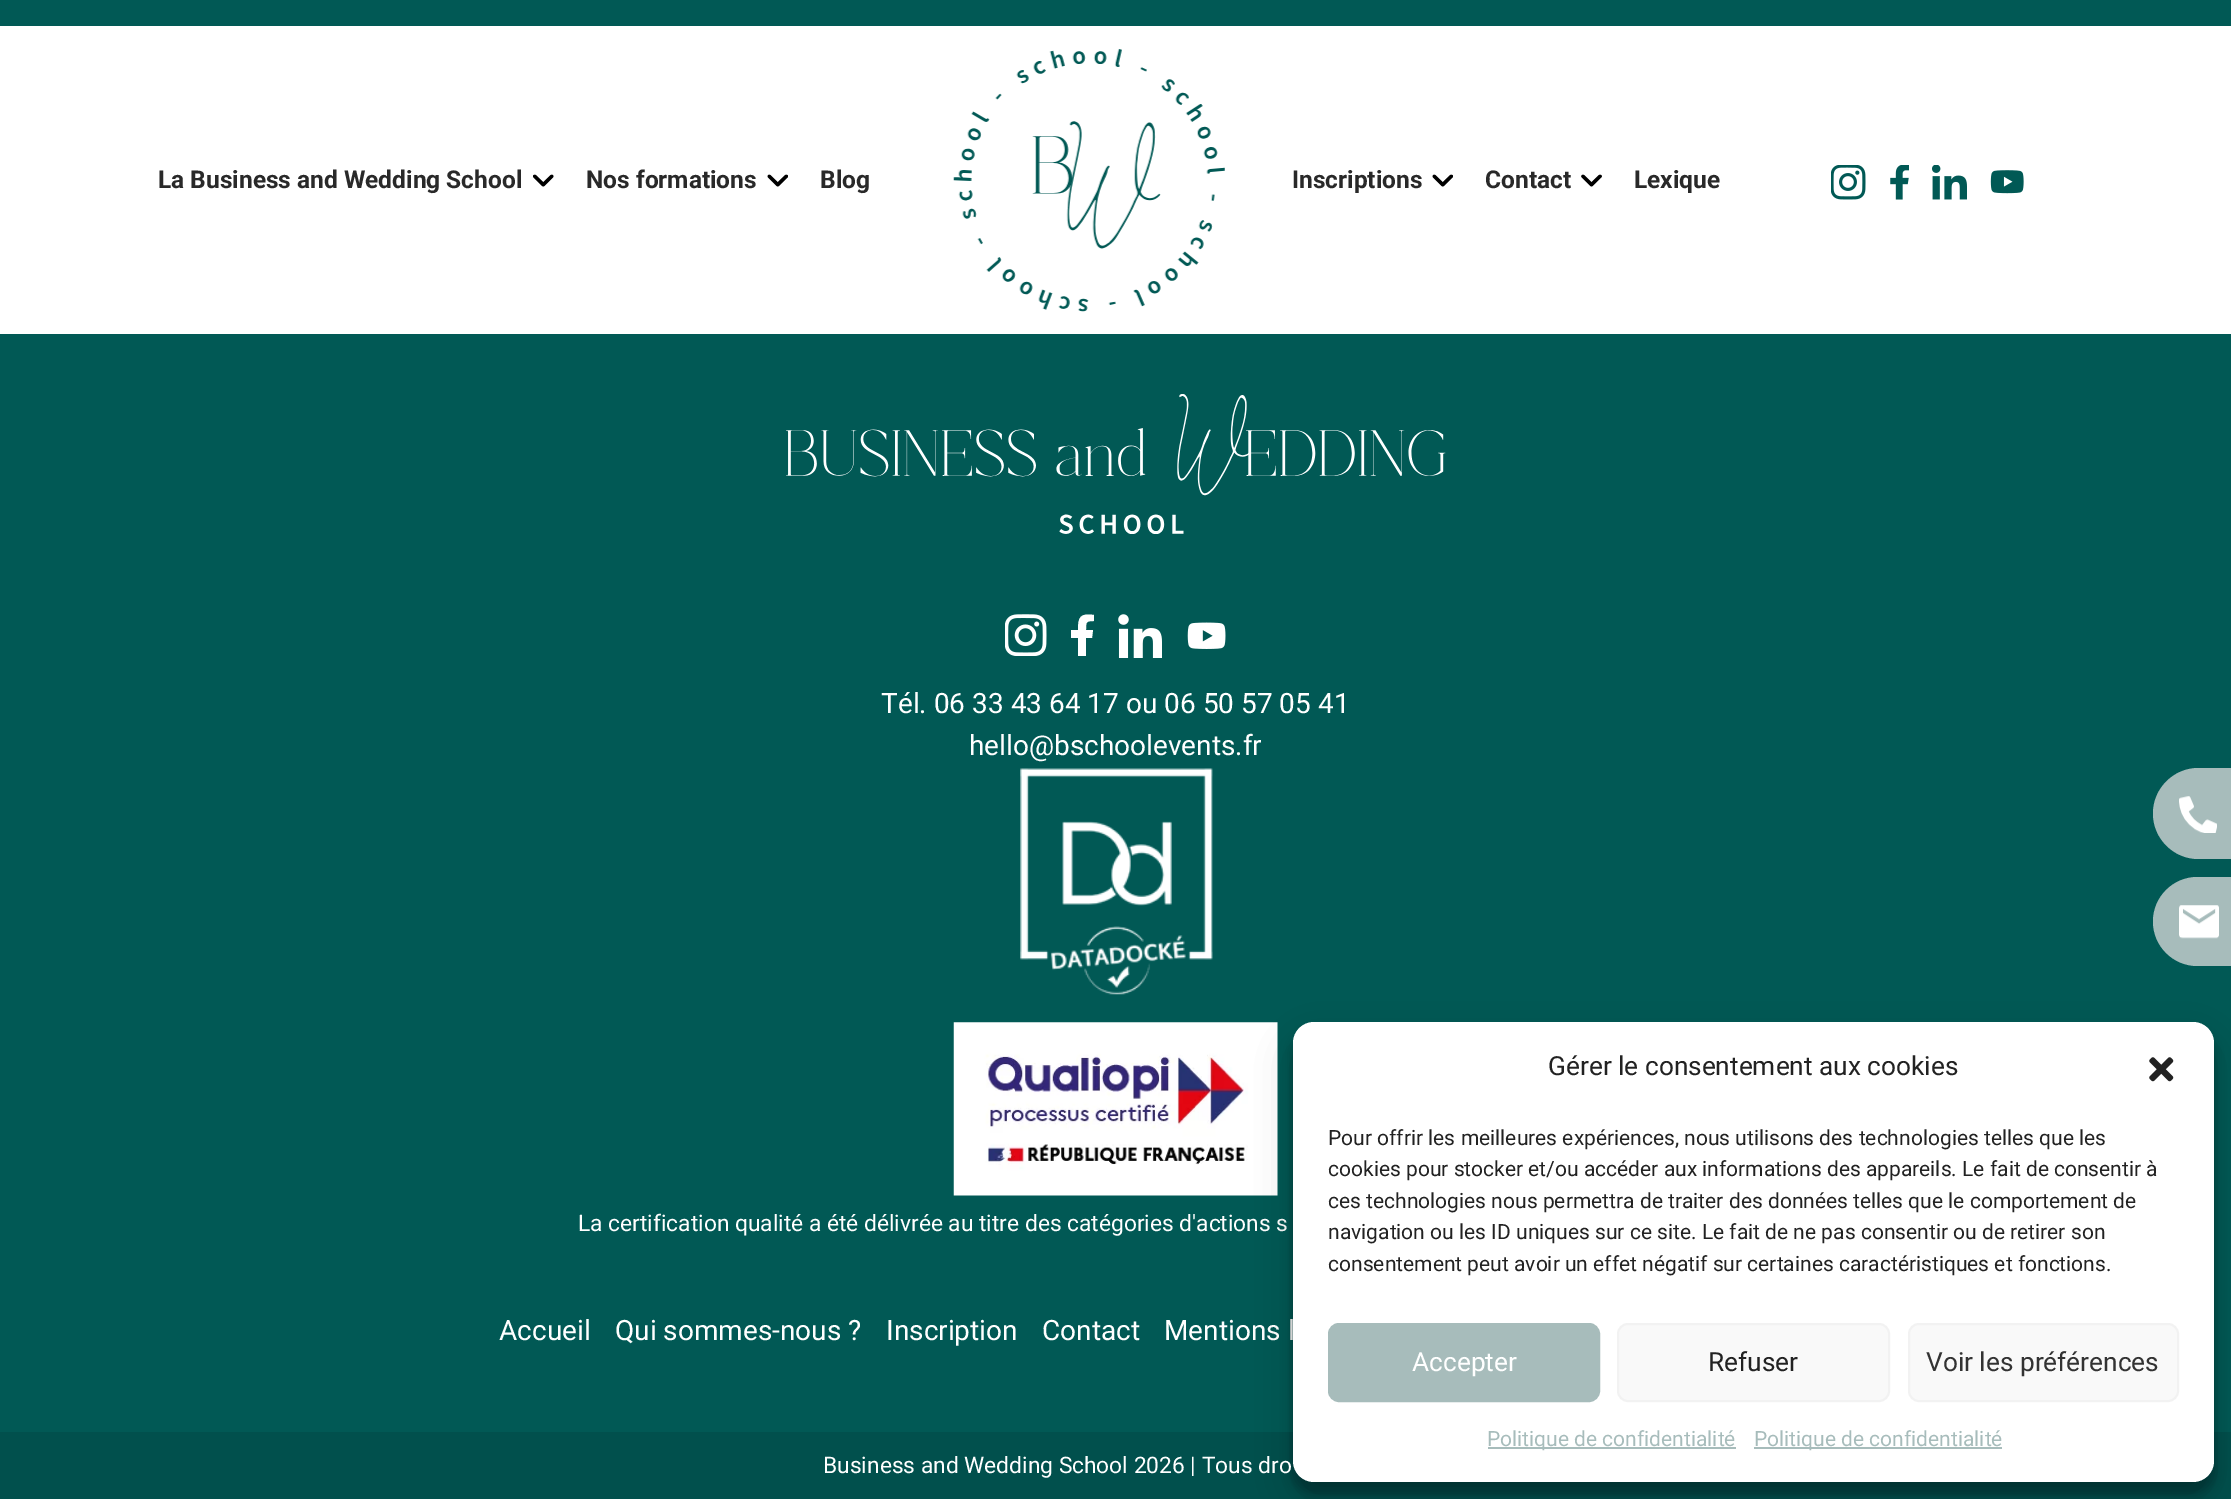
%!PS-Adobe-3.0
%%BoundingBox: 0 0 2231 1499
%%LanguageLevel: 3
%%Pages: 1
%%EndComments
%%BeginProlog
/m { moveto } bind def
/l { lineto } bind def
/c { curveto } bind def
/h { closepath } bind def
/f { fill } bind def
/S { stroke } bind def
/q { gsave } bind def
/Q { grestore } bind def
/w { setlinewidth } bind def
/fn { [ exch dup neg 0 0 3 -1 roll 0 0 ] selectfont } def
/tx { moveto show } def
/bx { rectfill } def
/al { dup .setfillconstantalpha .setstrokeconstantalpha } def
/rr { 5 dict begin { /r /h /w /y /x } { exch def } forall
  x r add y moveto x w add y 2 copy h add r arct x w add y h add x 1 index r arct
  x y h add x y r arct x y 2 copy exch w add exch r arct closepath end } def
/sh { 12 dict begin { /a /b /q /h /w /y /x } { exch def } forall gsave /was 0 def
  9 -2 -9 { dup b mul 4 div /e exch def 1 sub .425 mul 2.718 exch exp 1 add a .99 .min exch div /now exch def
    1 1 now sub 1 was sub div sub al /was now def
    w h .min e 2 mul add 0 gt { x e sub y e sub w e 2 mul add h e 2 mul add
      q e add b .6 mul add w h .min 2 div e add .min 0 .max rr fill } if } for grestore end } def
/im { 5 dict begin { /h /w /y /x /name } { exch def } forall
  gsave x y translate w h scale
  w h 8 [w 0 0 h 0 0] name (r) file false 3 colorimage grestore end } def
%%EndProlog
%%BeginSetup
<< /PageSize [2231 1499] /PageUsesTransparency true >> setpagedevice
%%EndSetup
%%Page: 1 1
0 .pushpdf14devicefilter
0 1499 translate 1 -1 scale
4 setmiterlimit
0.004 0.349 0.333 setrgbcolor
0 0 2231 1499 bx
1 setgray
0 26 2231 308 bx
/Roboto-Bold 24.5 fn
0.161 setgray
(La Business and Wedding School) 158 188 tx
(image0.raw) 533 174 21 13 im
(Nos formations) 586 188 tx
(image1.raw) 767 174 21 13 im
(Blog) 820 188 tx
(image2.raw) 953 49 272 263 im
(Inscriptions) 1292 188 tx
(image1.raw) 1432 174 21 13 im
(Contact) 1485 188 tx
(image3.raw) 1581 174 21 13 im
(Lexique) 1634 188 tx
(image4.raw) 1831 165 35 35 im
(image5.raw) 1890 165 19 35 im
(image6.raw) 1932 165 35 35 im
(image7.raw) 1990 170 34 24 im
(image8.raw) 786 394 660 140 im
(image9.raw) 1005 614 42 42 im
1 setgray
1092 638 m 1093 630 l 1086 630 l 1086 622 1086 621 1094 621 c 1094 615 l 1080 613 1078 617 1078 630 c 1071 630 l 1071 638 l 1078 638 l 1078 656 l 1086 656 l 1086 638 l h f
(image10.raw) 1118 614 44 44 im
(image11.raw) 1187 622 39 27 im
/Roboto-Regular 28 fn
(Tél. 06 33 43 64 17 ou 06 50 57 05 41) 881 713 tx
(hello@bschoolevents.fr) 969 755 tx
(image12.raw) 1020 768 193 227 im
(image13.raw) 953 1022 325 174 im
/Roboto-Regular 22.75 fn
(La certification qualité a été délivrée au titre des catégories d'actions s) 578 1231 tx
/Roboto-Regular 28 fn
(Accueil) 499 1340 tx
(Qui sommes-nous ?) 615 1340 tx
(Inscription) 886 1340 tx
(Contact) 1042 1340 tx
(Mentions l) 1164 1340 tx
0.655 0.737 0.733 setrgbcolor
2198.5 768 m 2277 768 l 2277 859 l 2198.5 859 l 2173.5 859 2153 838.5 2153 813.5 c 2153 788.5 2173.5 768 2198.5 768 c h f
(image14.raw) 2179 796 38 37 im
2197.5 877 m 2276 877 l 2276 966 l 2197.5 966 l 2173 966 2153 946 2153 921.5 c 2153 897 2173 877 2197.5 877 c h f
(image15.raw) 2179 905 40 34 im
0.004 0.314 0.302 setrgbcolor
0 1432 2231 67 bx
0 setgray
1293 1033 921 460 21 5 0.23 sh
1293 1040 921 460 21 17.5 0.19 sh
1 setgray
1293 1022 921 460 21 rr f
/Roboto-Regular 26.25 fn
0.133 setgray
(Gérer le consentement aux cookies) 1548 1075 tx
(image16.raw) 2149 1057 25 25 im
/Roboto-Regular 21 fn
(Pour offrir les meilleures expériences, nous utilisons des technologies telles que les) 1328 1145 tx
(cookies pour stocker et/ou accéder aux informations des appareils. Le fait de consentir à) 1328 1176 tx
(ces technologies nous permettra de traiter des données telles que le comportement de) 1328 1208 tx
(navigation ou les ID uniques sur ce site. Le fait de ne pas consentir ou de retirer son) 1328 1239 tx
(consentement peut avoir un effet négatif sur certaines caractéristiques et fonctions.) 1328 1271 tx
0.655 0.737 0.733 setrgbcolor
1329 1324 270 77 10 rr q f Q
2 w
S
/Roboto-Regular 26.25 fn
1 setgray
(Accepter) 1412 1371 tx
0.976 setgray
1618 1324 271 77 10 rr q f Q
0.949 setgray
S
0.133 setgray
(Refuser) 1708 1371 tx
0.976 setgray
1909 1324 269 77 10 rr q f Q
0.949 setgray
S
0.2 setgray
(Voir les préférences) 1926 1371 tx
0.655 0.737 0.733 setrgbcolor
1488 1447 248 2 bx
/Roboto-Regular 21 fn
(Politique de confidentialité) 1487 1446 tx
1754 1447 248 2 bx
(Politique de confidentialité) 1754 1446 tx
/Roboto-Regular 22.75 fn
1 setgray
(Business and Wedding School 2026 | Tous dro) 823 1473 tx
.poppdf14devicefilter showpage
%%EOF
